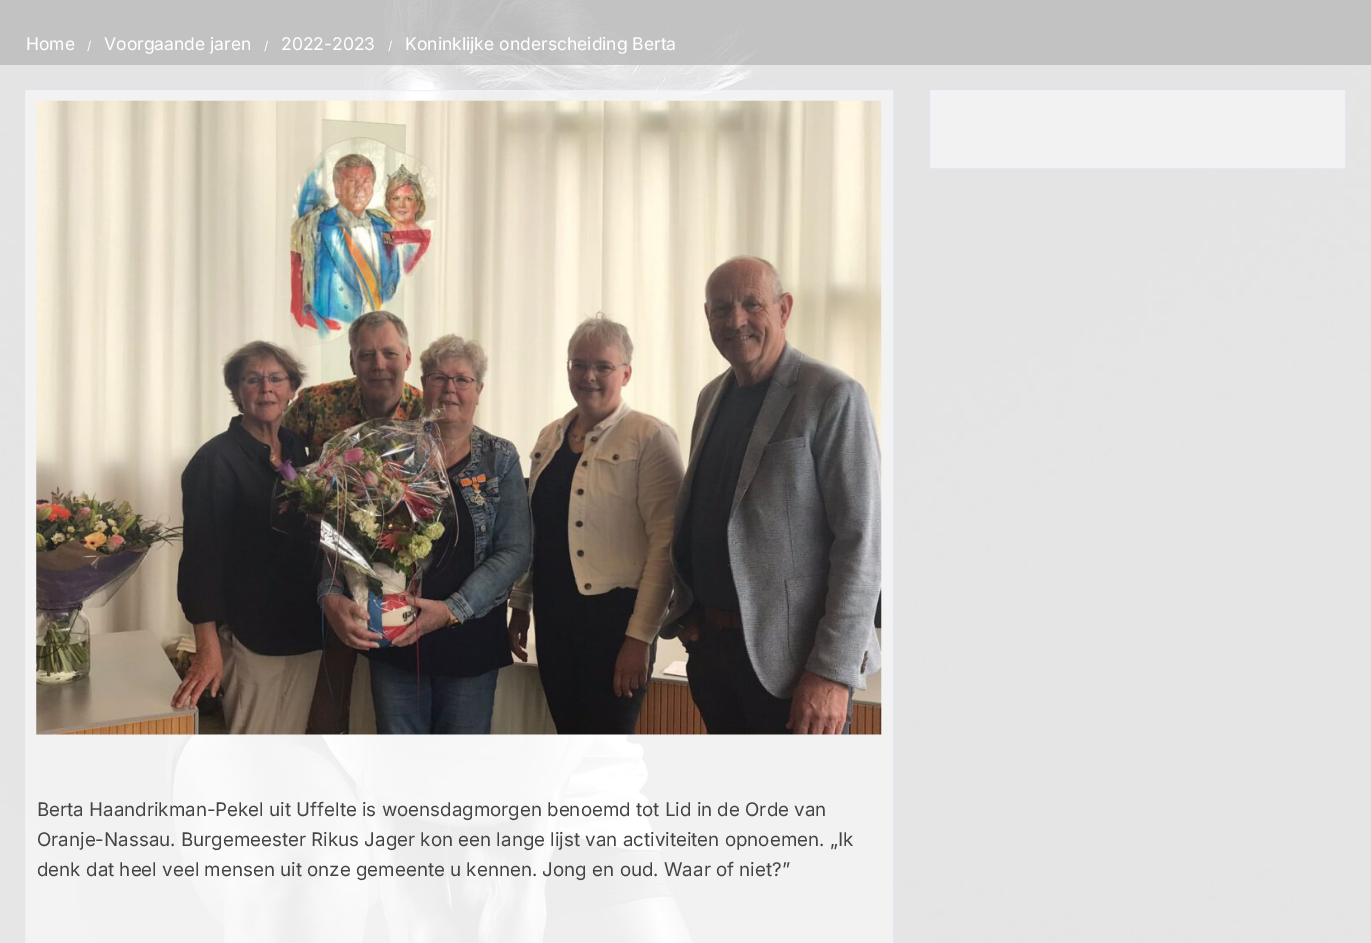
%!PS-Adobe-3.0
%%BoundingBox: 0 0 1371 943
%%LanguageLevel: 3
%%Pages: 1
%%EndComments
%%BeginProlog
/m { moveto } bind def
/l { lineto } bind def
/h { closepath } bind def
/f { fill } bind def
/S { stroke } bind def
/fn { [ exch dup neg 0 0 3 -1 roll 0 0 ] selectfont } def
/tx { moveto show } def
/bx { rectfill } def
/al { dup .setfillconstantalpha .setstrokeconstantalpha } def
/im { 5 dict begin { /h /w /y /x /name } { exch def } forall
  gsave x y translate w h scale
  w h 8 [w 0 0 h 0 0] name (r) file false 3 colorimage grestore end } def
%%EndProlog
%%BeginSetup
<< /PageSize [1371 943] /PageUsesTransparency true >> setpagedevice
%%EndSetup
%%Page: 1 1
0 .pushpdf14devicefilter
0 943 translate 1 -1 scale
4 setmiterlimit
1 setgray
0 0 1371 943 bx
(image0.raw) 0 0 1371 943 im
0.5 al
0 0 1371 65 bx
0.2 al
0 setgray
0 0 1371 65 bx
/Inter-Regular 17.5 fn
1 al
1 setgray
(Home) 26 50 tx
/Inter-Regular 12 fn
(/) 87 50 tx
/Inter-Regular 17.5 fn
(Voorgaande jaren) 104 50 tx
/Inter-Regular 12 fn
(/) 264 50 tx
/Inter-Regular 17.5 fn
(2022-2023) 281 50 tx
/Inter-Regular 12 fn
(/) 388 50 tx
/Inter-Regular 17.5 fn
(Koninklijke onderscheiding Berta) 405 50 tx
0.5 al
930.5 90.5 m 1344.5 90.5 l 1344.5 167.5 l 930.5 167.5 l h f
1 al
0.933 0.945 0.992 setrgbcolor
930.5 90.5 m 1344.5 90.5 l 1344.5 167.5 l 930.5 167.5 l h S
0.5 al
1 setgray
25.5 90.5 m 892.5 90.5 l 892.5 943.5 l 25.5 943.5 l h f
1 al
0.933 0.945 0.992 setrgbcolor
25.5 90.5 m 892.5 90.5 l 892.5 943.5 l 25.5 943.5 l h S
(image1.raw) 36 100 846 635 im
/Inter-Regular 18.75 fn
0.267 setgray
(Berta Haandrikman-Pekel uit Uffelte is woensdagmorgen benoemd tot Lid in de Orde van) 37 816 tx
(Oranje-Nassau. Burgemeester Rikus Jager kon een lange lijst van activiteiten opnoemen. „Ik) 37 846 tx
(denk dat heel veel mensen uit onze gemeente u kennen. Jong en oud. Waar of niet?”) 37 876 tx
.poppdf14devicefilter showpage
%%EOF
